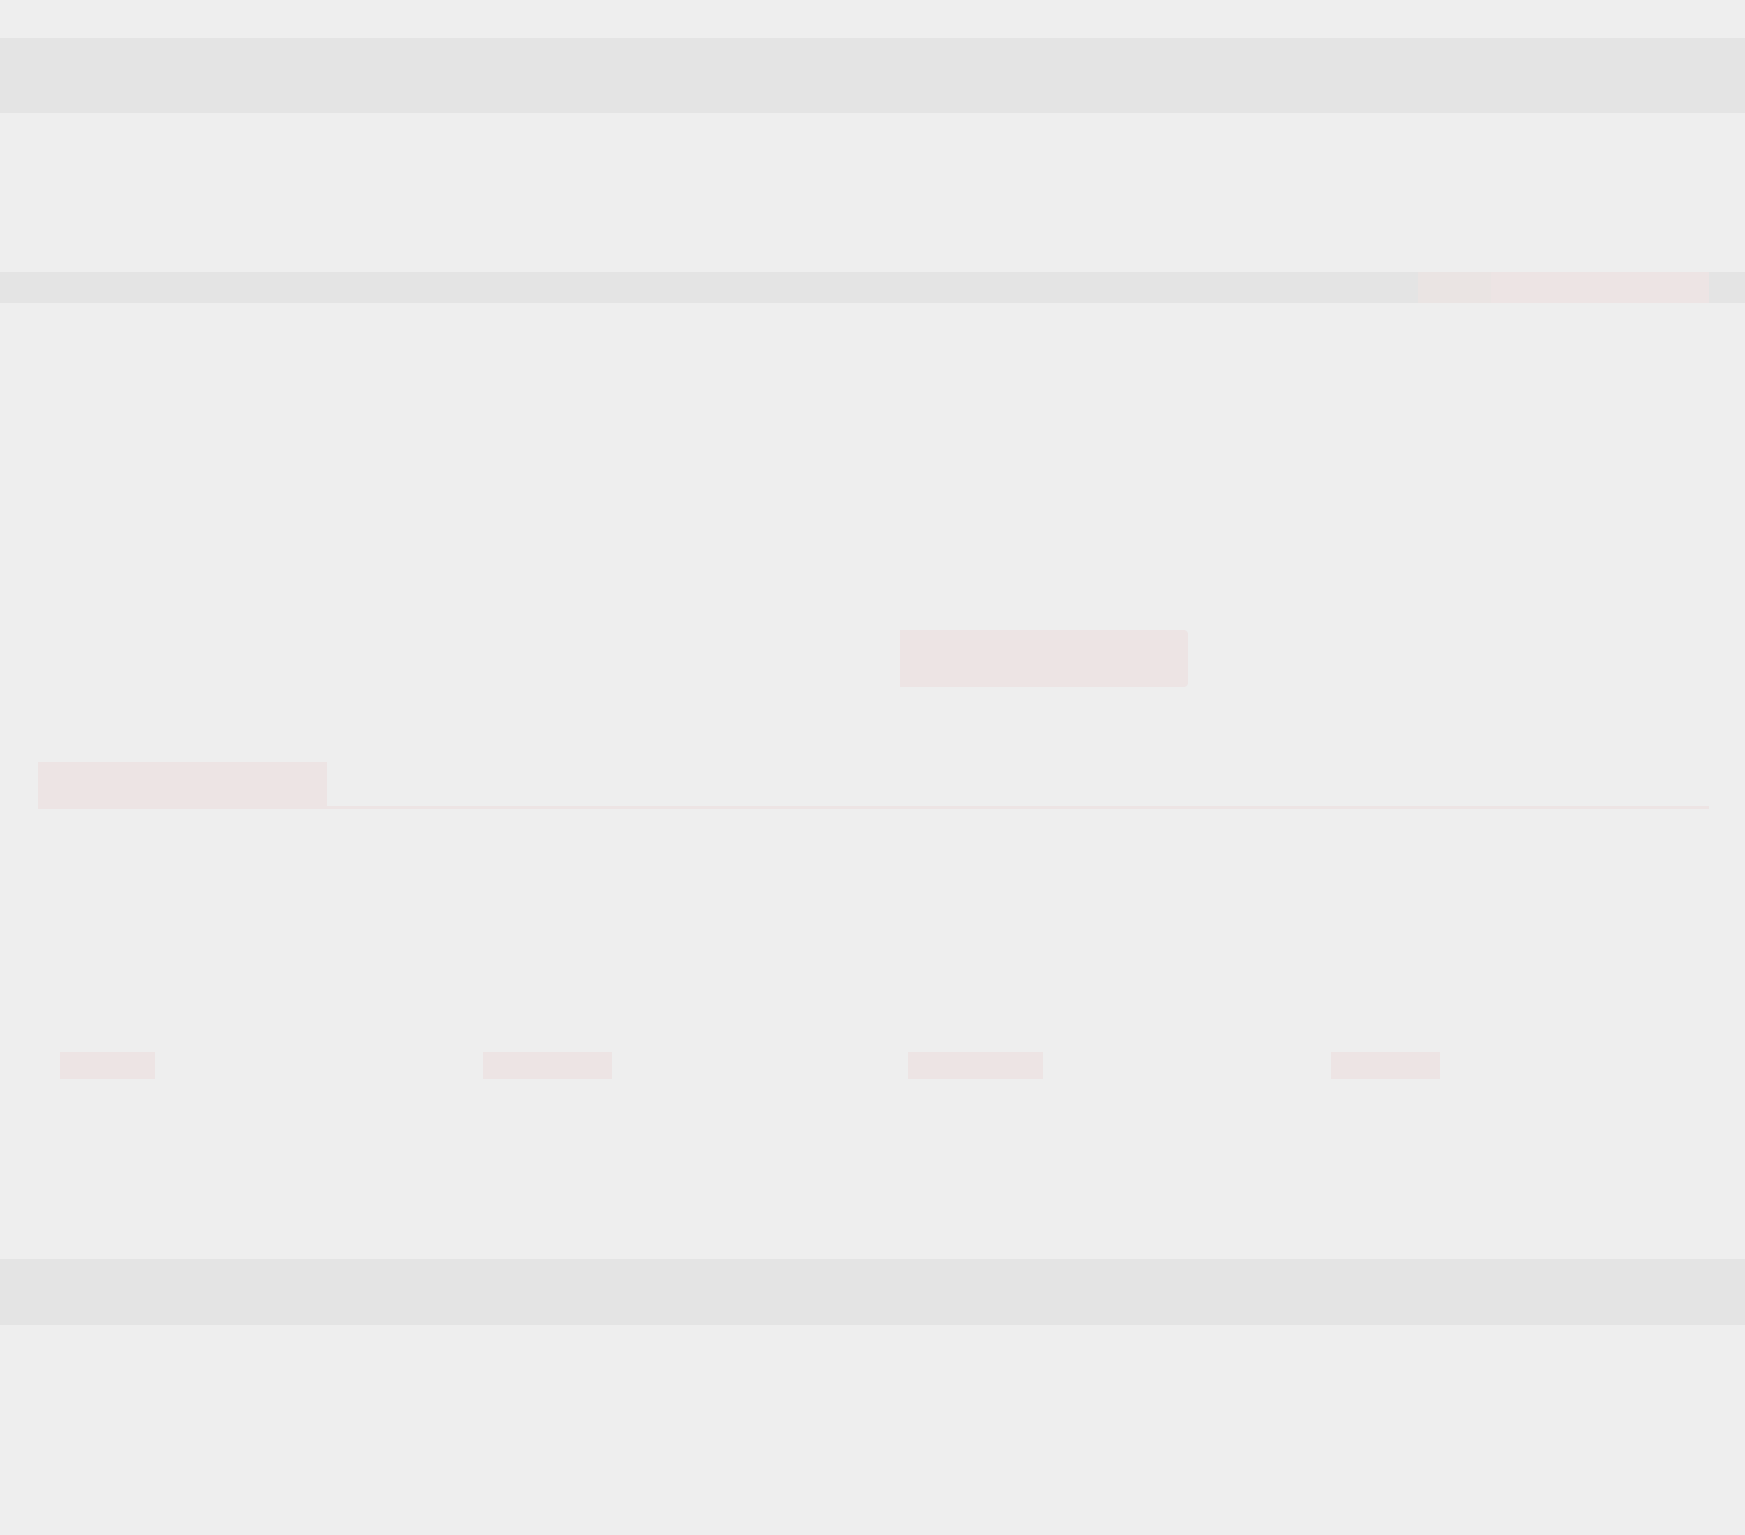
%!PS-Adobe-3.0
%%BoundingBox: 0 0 1745 1535
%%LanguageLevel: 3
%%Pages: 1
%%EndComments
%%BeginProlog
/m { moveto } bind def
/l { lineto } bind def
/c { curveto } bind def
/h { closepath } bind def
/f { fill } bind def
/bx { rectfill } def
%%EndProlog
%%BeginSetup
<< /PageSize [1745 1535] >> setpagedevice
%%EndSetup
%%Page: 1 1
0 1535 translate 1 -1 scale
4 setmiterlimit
0.933 setgray
0 0 1745 1535 bx
0.894 setgray
0 38 1745 75 bx
0 272 1745 31 bx
0.929 0.894 0.894 setrgbcolor
1491 272 218 31 bx
0.918 0.894 0.89 setrgbcolor
1418 272 73 31 bx
0.929 0.894 0.894 setrgbcolor
900 630 m 1183 630 l 1186 630 1188 632 1188 635 c 1188 682 l 1188 685 1186 687 1183 687 c 900 687 l h f
38 806 1671 3 bx
38 762 289 44 bx
60 1052 95 27 bx
483 1052 129 27 bx
908 1052 135 27 bx
1331 1052 109 27 bx
0.894 setgray
0 1259 1745 66 bx
showpage
%%EOF
